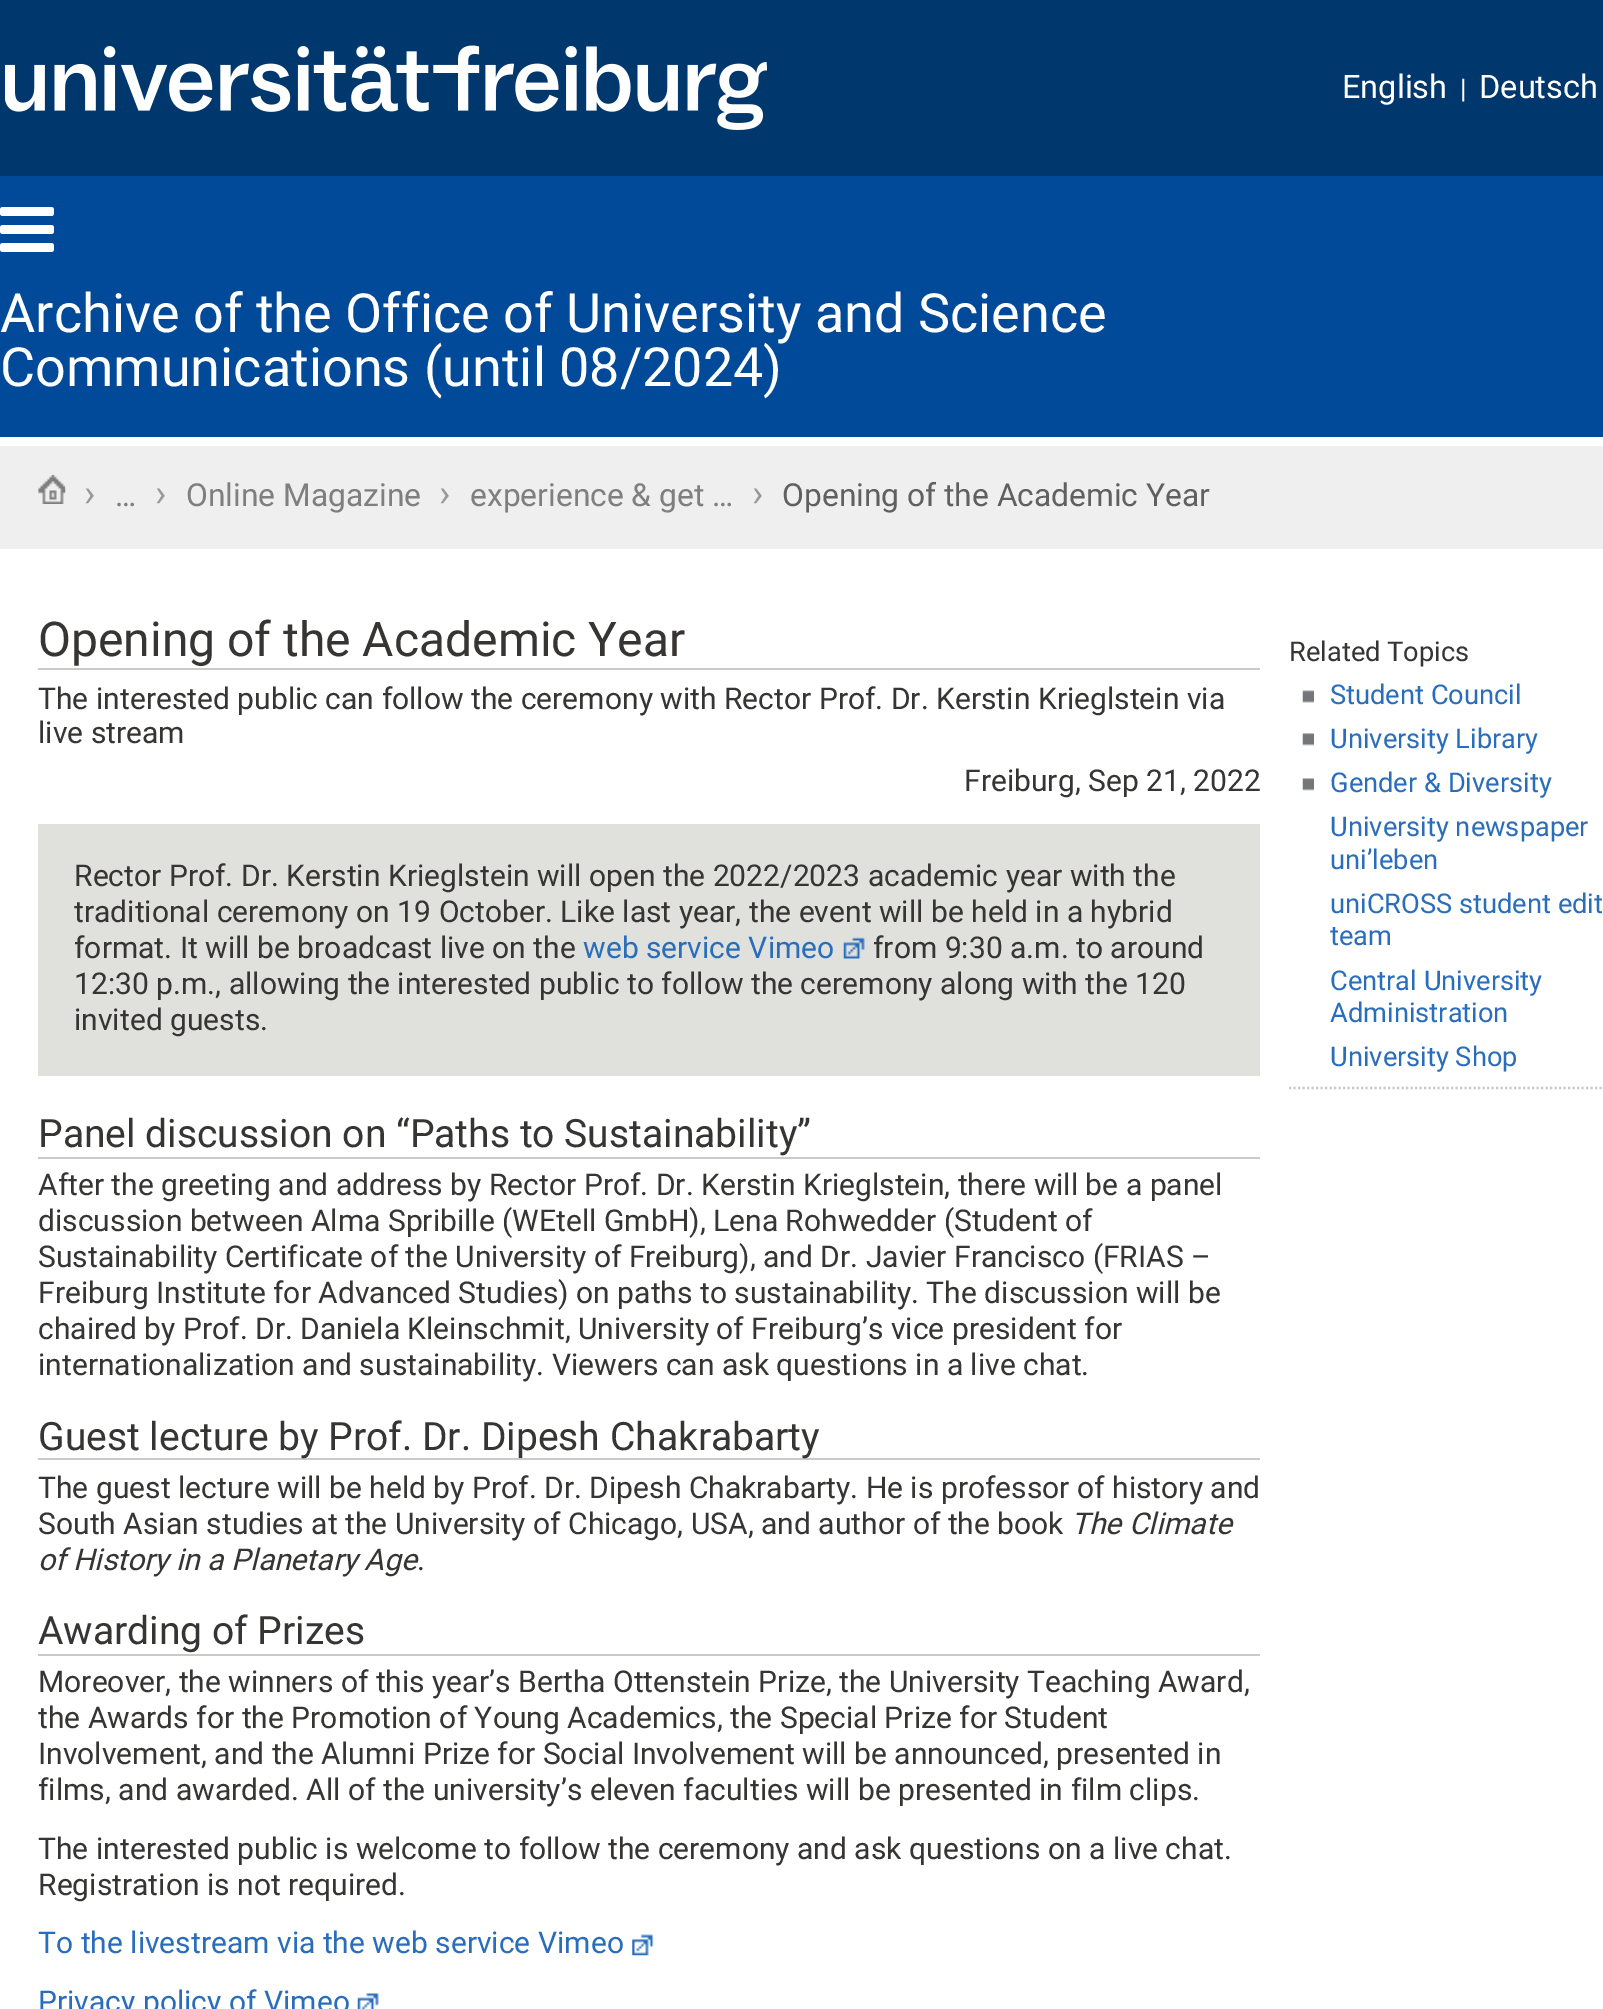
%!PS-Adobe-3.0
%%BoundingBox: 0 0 1603 2009
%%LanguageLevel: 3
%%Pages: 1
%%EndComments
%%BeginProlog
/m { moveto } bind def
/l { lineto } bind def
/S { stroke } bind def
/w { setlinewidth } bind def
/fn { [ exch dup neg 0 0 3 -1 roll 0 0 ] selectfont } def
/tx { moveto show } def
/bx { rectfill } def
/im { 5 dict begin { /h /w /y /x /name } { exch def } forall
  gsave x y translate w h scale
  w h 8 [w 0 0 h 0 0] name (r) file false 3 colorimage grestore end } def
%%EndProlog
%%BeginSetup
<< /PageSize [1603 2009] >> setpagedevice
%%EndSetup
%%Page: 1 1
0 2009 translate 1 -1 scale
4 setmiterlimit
0 0.29 0.6 setrgbcolor
0 0 1603 2009 bx
1 setgray
0 437 1603 9 bx
0 0.216 0.427 setrgbcolor
0 0 1603 176 bx
(image0.raw) 5 45 762 85 im
/Roboto-Regular 32.5 fn
1 setgray
(English) 1342 98 tx
/Roboto-Regular 27 fn
(|) 1460 98 tx
/Roboto-Regular 32.5 fn
(Deutsch) 1479 98 tx
(image1.raw) 0 207 54 45 im
/Roboto-Regular 54 fn
(Archive of the Office of University and Science) 0 332 tx
(Communications \(until 08/2024\)) 0 386 tx
0 549 1603 1460 bx
0.937 setgray
0 446 1603 103 bx
(image2.raw) 38 474 28 30 im
/Roboto-Regular 38 fn
0.6 setgray
(›) 84 506 tx
(›) 155 506 tx
/Roboto-Regular 31.75 fn
0.502 0.498 0.498 setrgbcolor
(…) 115 506 tx
(Online Magazine) 186 506 tx
/Roboto-Regular 38 fn
0.6 setgray
(›) 439 506 tx
/Roboto-Regular 31.75 fn
0.502 0.498 0.498 setrgbcolor
(experience & get …) 470 506 tx
/Roboto-Regular 38 fn
0.6 setgray
(›) 752 506 tx
/Roboto-Regular 31.75 fn
0.376 setgray
(Opening of the Academic Year) 782 506 tx
0.788 0.792 0.784 setrgbcolor
38 668 1222 2 bx
/Roboto-Regular 48 fn
0.212 0.208 0.204 setrgbcolor
(Opening of the Academic Year) 38 656 tx
/Roboto-Regular 30.05 fn
(The interested public can follow the ceremony with Rector Prof. Dr. Kerstin Krieglstein via) 38 709 tx
(live stream) 38 743 tx
(Freiburg, Sep 21, 2022) 964 791 tx
0.878 0.882 0.867 setrgbcolor
38 824 1222 252 bx
0.212 0.208 0.204 setrgbcolor
(Rector Prof. Dr. Kerstin Krieglstein will open the 2022/2023 academic year with the) 74 886 tx
(traditional ceremony on 19 October. Like last year, the event will be held in a hybrid) 74 922 tx
(format. It will be broadcast live on the) 74 958 tx
0.165 0.431 0.733 setrgbcolor
(web service Vimeo) 583 958 tx
(image3.raw) 843 937 22 22 im
0.212 0.208 0.204 setrgbcolor
(from 9:30 a.m. to around) 873 958 tx
(12:30 p.m., allowing the interested public to follow the ceremony along with the 120) 74 994 tx
(invited guests.) 74 1030 tx
0.788 0.792 0.784 setrgbcolor
38 1157 1222 2 bx
/Roboto-Regular 39.05 fn
0.212 0.208 0.204 setrgbcolor
(Panel discussion on “Paths to Sustainability”) 38 1147 tx
/Roboto-Regular 30.05 fn
(After the greeting and address by Rector Prof. Dr. Kerstin Krieglstein, there will be a panel) 38 1195 tx
(discussion between Alma Spribille \(WEtell GmbH\), Lena Rohwedder \(Student of) 38 1231 tx
(Sustainability Certificate of the University of Freiburg\), and Dr. Javier Francisco \(FRIAS –) 38 1267 tx
(Freiburg Institute for Advanced Studies\) on paths to sustainability. The discussion will be) 38 1303 tx
(chaired by Prof. Dr. Daniela Kleinschmit, University of Freiburg’s vice president for) 38 1339 tx
(internationalization and sustainability. Viewers can ask questions in a live chat.) 38 1375 tx
0.788 0.792 0.784 setrgbcolor
38 1458 1222 2 bx
/Roboto-Regular 39.05 fn
0.212 0.208 0.204 setrgbcolor
(Guest lecture by Prof. Dr. Dipesh Chakrabarty) 38 1450 tx
/Roboto-Regular 30.05 fn
(The guest lecture will be held by Prof. Dr. Dipesh Chakrabarty. He is professor of history and) 38 1498 tx
(South Asian studies at the University of Chicago, USA, and author of the book) 38 1534 tx
/Roboto-Italic 30.05 fn
(The Climate) 1071 1534 tx
(of History in a Planetary Age) 38 1570 tx
/Roboto-Regular 30.05 fn
(.) 417 1570 tx
0.788 0.792 0.784 setrgbcolor
38 1654 1222 2 bx
/Roboto-Regular 39.05 fn
0.212 0.208 0.204 setrgbcolor
(Awarding of Prizes) 38 1644 tx
/Roboto-Regular 30.05 fn
(Moreover, the winners of this year’s Bertha Ottenstein Prize, the University Teaching Award,) 38 1692 tx
(the Awards for the Promotion of Young Academics, the Special Prize for Student) 38 1728 tx
(Involvement, and the Alumni Prize for Social Involvement will be announced, presented in) 38 1764 tx
(films, and awarded. All of the university’s eleven faculties will be presented in film clips.) 38 1800 tx
(The interested public is welcome to follow the ceremony and ask questions on a live chat.) 38 1859 tx
(Registration is not required.) 38 1895 tx
0.165 0.431 0.733 setrgbcolor
(To the livestream via the web service Vimeo) 38 1953 tx
(image4.raw) 632 1934 22 22 im
(Privacy policy of Vimeo) 38 2012 tx
(image5.raw) 357 1993 22 16 im
/Roboto-Regular 27.25 fn
0.212 0.208 0.204 setrgbcolor
(Related Topics) 1289 661 tx
0.788 0.792 0.784 setrgbcolor
2.2 w
[2.25 2.25] 0 setdash
1289 1088 m 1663 1088 l S
(image6.raw) 1302 690 12 13 im
0.165 0.431 0.733 setrgbcolor
(Student Council) 1330 704 tx
(image7.raw) 1302 733 12 13 im
(University Library) 1330 748 tx
(image7.raw) 1302 778 12 13 im
(Gender & Diversity) 1330 792 tx
(University newspaper) 1330 836 tx
(uni’leben) 1330 869 tx
(uniCROSS student edit) 1330 913 tx
(team) 1330 945 tx
(Central University) 1330 990 tx
(Administration) 1330 1022 tx
(University Shop) 1330 1066 tx
showpage
%%EOF
